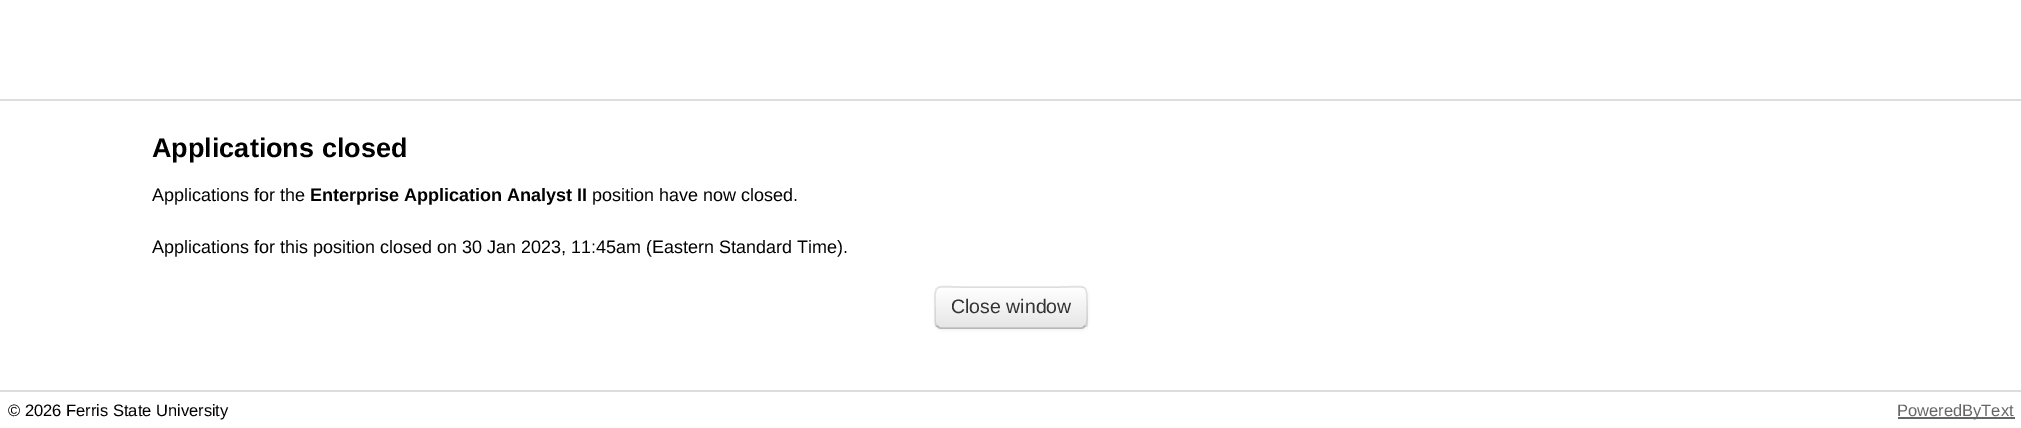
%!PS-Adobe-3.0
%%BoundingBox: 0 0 2021 428
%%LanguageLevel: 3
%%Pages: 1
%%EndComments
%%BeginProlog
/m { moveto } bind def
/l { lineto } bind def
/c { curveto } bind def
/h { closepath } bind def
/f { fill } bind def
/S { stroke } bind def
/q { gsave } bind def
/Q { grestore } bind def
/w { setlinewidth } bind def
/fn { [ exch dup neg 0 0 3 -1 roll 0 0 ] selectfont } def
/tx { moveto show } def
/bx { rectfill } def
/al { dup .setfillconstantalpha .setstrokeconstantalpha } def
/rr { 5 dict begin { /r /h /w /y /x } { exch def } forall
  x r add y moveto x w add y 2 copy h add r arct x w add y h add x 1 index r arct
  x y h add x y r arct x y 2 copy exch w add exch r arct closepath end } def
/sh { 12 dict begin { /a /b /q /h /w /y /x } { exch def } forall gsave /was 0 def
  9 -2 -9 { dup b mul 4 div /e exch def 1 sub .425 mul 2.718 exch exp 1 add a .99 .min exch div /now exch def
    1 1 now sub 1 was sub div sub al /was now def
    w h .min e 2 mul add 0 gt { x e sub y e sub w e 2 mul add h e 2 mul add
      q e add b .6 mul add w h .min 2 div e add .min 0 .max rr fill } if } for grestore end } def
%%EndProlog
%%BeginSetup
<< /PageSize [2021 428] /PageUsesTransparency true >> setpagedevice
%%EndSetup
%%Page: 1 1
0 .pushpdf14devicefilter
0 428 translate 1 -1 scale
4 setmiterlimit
1 setgray
0 0 2021 428 bx
0.867 setgray
0 99 2021 2 bx
/LiberationSans-Bold 27 fn
0 setgray
(Applications closed) 152 157 tx
/LiberationSans-Regular 18 fn
(Applications for the) 152 201 tx
/LiberationSans-Bold 18 fn
(Enterprise Application Analyst II) 310 201 tx
/LiberationSans-Regular 18 fn
(position have now closed.) 592 201 tx
(Applications for this position closed on 30 Jan 2023, 11:45am \(Eastern Standard Time\).) 152 253 tx
935 288 153 42 6 1.5 0.05 sh
0.961 setgray
935 287 153 42 6 rr f
q
935 287 153 42 6 rr clip newpath
q 935 288 m 1088 288 l 1088 327 l 935 327 l h clip newpath
<< /ShadingType 2 /ColorSpace /DeviceRGB /Coords [1011 288 1011 327] /Extend [true true] /Function << /FunctionType 2 /Domain [0 1] /C0 [1 1 1] /C1 [0.902 0.902 0.902] /N 1 >> >> shfill Q
Q
0.25 al
0 setgray
1.5 w
1085 326 m 1084 327 1083 328 1081.5 328 c 940.5 328 l 939 328 938 327 937 326 c S
0.1 al
937 326 m 934.5 324 935 320.5 935 317.5 c 935 307.5 l 935 281.5 933.5 287 964 287 c 1058 287 l 1088.5 287 1087 281.5 1087 307.5 c 1087 317.5 l 1087 320.5 1087.5 324 1085 326 c S
/LiberationSans-Regular 19.5 fn
1 al
0.2 setgray
(Close window) 951 313 tx
0.867 setgray
0 390 2021 2 bx
/LiberationSans-Regular 16.5 fn
0 setgray
(© 2026 Ferris State University) 8 416 tx
0.4 setgray
1898 417 117 2 bx
(PoweredByText) 1897 416 tx
.poppdf14devicefilter showpage
%%EOF
